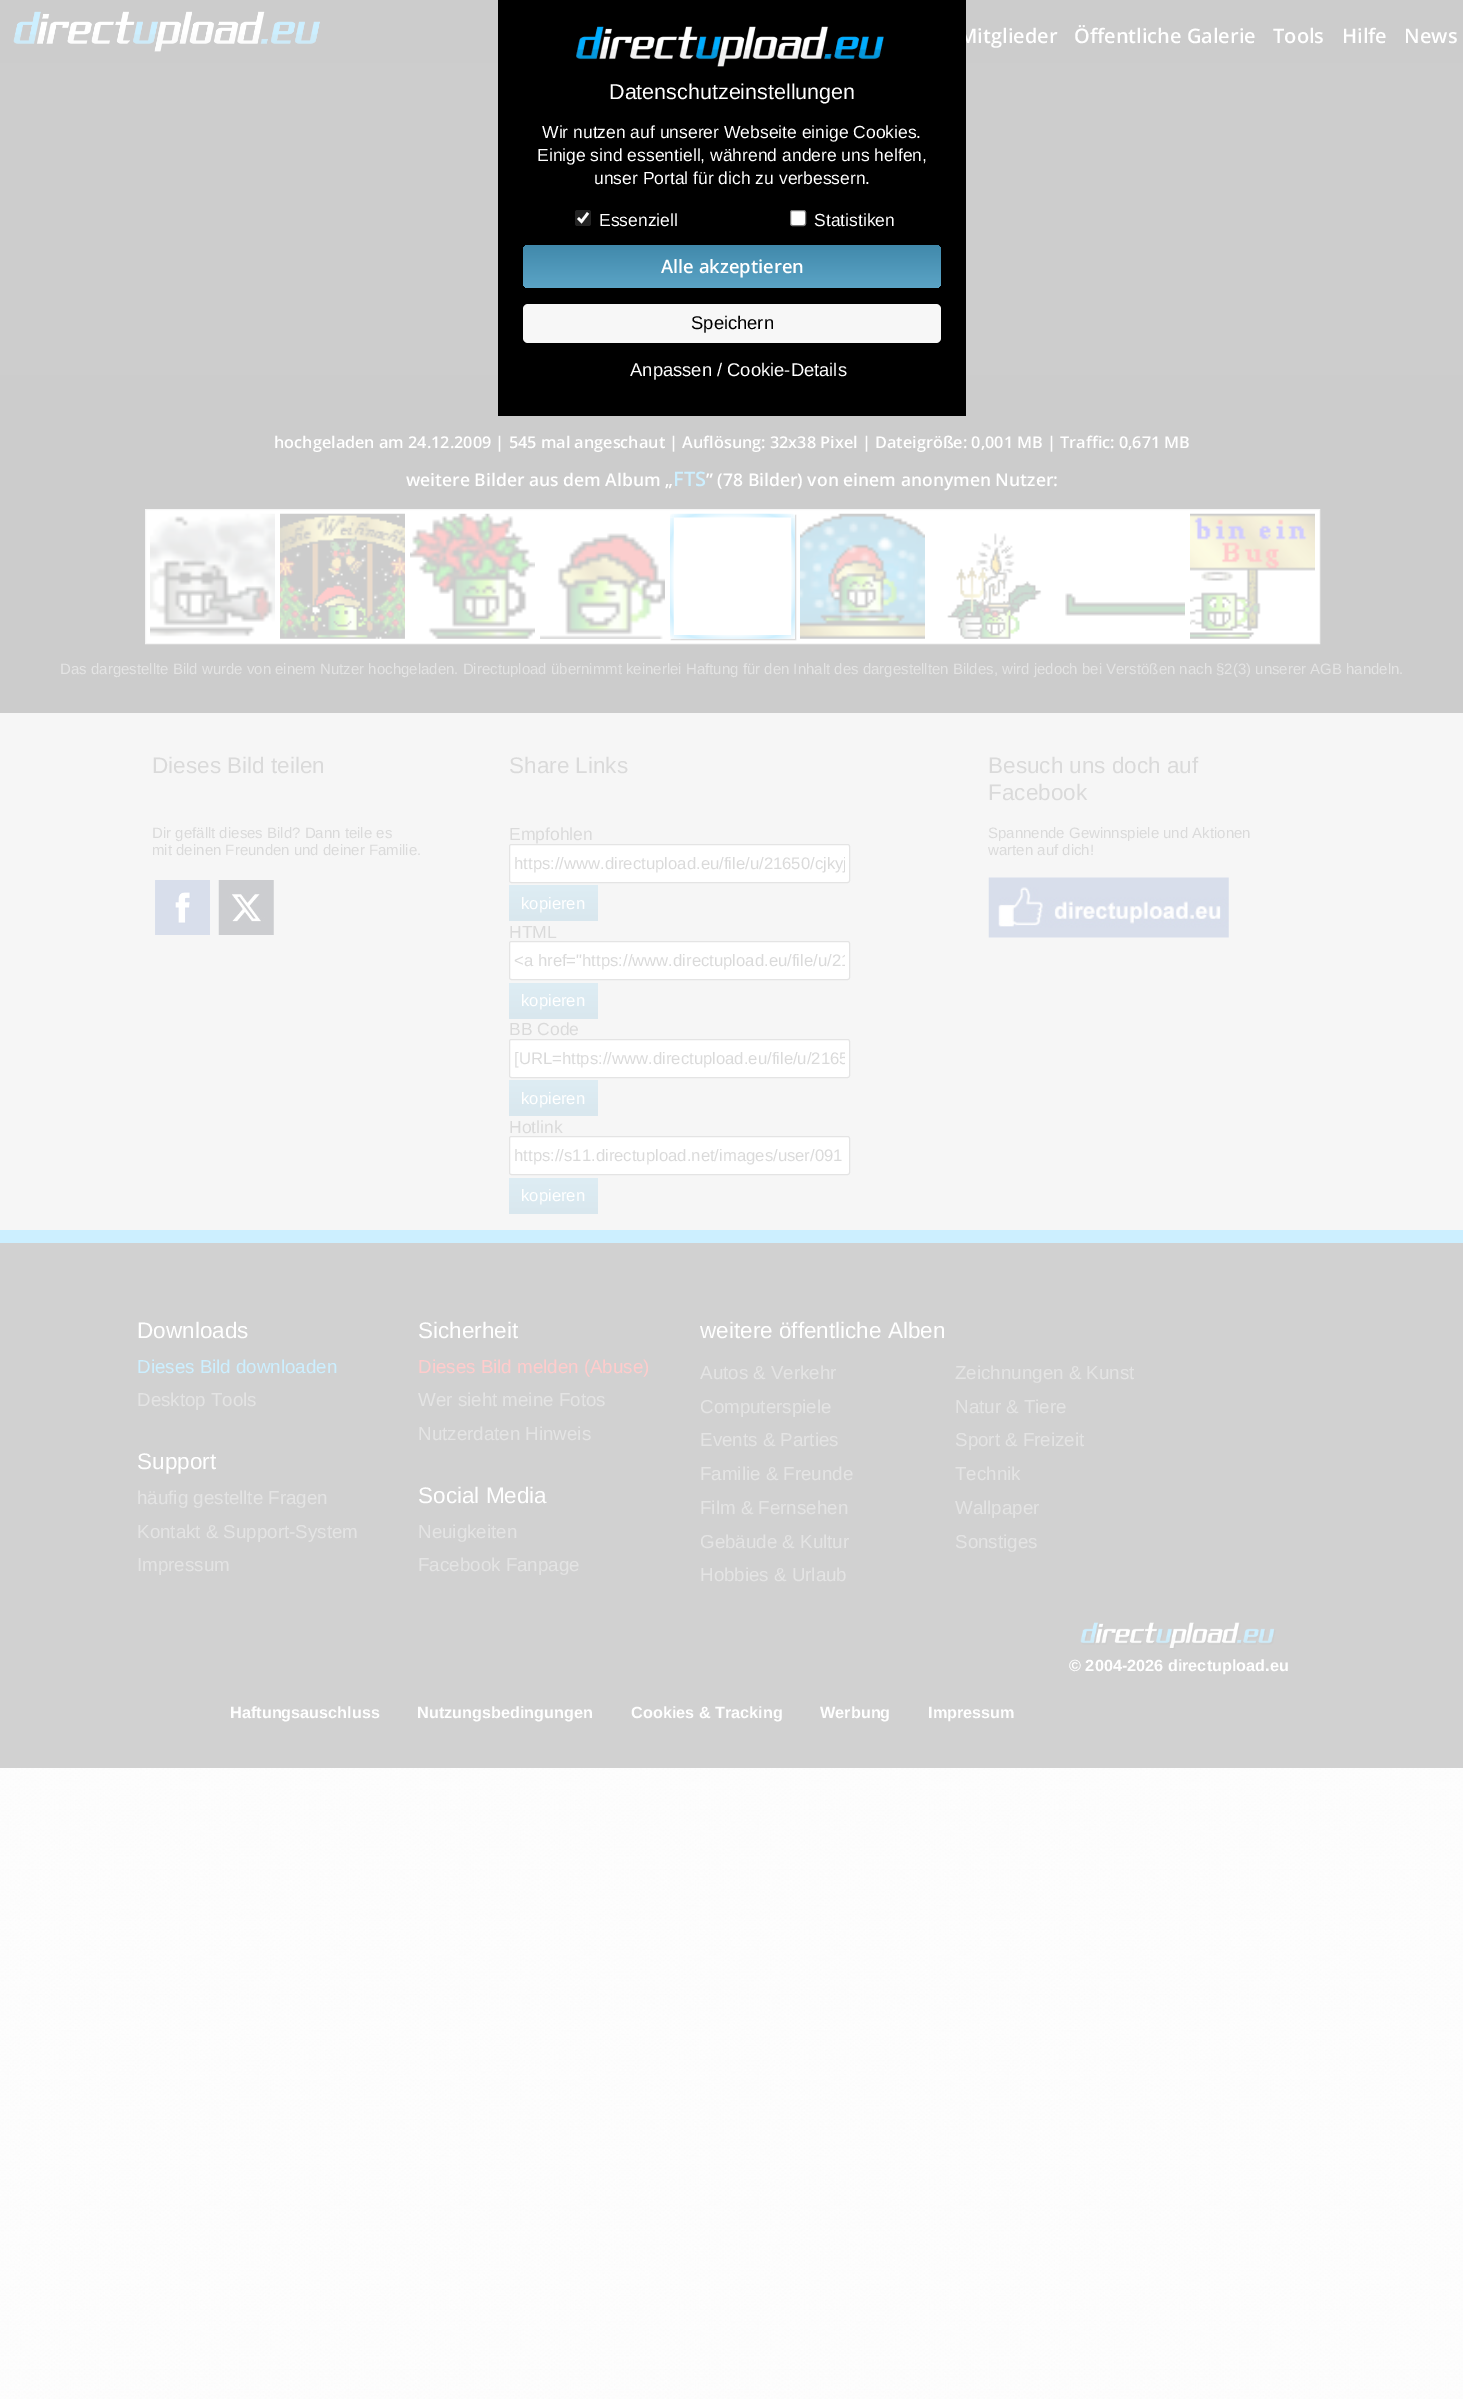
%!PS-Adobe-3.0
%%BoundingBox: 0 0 1463 2399
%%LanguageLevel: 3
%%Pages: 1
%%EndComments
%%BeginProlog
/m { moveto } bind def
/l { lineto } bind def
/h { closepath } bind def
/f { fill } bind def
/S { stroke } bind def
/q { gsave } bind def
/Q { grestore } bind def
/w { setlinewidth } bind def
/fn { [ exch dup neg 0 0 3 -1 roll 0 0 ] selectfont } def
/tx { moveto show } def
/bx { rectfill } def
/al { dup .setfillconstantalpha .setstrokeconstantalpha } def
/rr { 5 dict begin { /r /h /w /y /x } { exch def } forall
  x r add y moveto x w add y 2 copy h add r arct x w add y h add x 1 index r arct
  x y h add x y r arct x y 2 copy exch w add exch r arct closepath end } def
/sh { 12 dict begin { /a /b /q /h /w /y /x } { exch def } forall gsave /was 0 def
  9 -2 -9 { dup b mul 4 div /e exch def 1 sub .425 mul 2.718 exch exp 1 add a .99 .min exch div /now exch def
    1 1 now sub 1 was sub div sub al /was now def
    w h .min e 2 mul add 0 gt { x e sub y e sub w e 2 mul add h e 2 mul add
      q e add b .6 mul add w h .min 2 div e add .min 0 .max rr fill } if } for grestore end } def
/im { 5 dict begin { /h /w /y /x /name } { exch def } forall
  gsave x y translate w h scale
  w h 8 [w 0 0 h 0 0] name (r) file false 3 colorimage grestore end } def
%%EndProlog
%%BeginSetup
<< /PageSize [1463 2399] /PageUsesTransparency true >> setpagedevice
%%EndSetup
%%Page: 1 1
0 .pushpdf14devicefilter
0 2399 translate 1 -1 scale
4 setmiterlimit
1 setgray
0 0 1463 2399 bx
(image0.raw) 0 63 1463 2336 im
0.8 setgray
0 0 1463 63 bx
(image1.raw) 13 11 307 41 im
/OpenSans-SemiBold 20 fn
1 setgray
(Mitglieder) 959 43 tx
(Öffentliche Galerie) 1074 43 tx
(Tools) 1273 43 tx
(Hilfe) 1342 43 tx
(News) 1404 43 tx
0.98 al
0.8 setgray
0 63 1463 312 bx
1 al
0 375 1463 338 bx
0 setgray
498 0 468 416 bx
(image2.raw) 576 26 308 41 im
/LiberationSans-Regular 21.5 fn
1 setgray
(Datenschutzeinstellungen) 609 99 tx
/LiberationSans-Regular 17.5 fn
(Wir nutzen auf unserer Webseite einige Cookies.) 542 138 tx
(Einige sind essentiell, während andere uns helfen,) 537 161 tx
(unser Portal für dich zu verbessern.) 594 184 tx
0.137 setgray
575 210 16 16 2.5 rr f
1 setgray
2.6 w
578 218 m 581.5 221.5 l 588 213 l S
(Essenziell) 599 226 tx
790.5 210.5 15 15 2 rr q f Q
0.463 setgray
1 w
S
1 setgray
(Statistiken) 814 226 tx
q 523 245 418 43 5 rr clip newpath
<< /ShadingType 2 /ColorSpace /DeviceRGB /Coords [732 245 732 288] /Extend [true true] /Function << /FunctionType 2 /Domain [0 1] /C0 [0.255 0.537 0.671] /C1 [0.357 0.643 0.776] /N 1 >> >> shfill Q
/OpenSans-SemiBold 18.4 fn
(Alle akzeptieren) 661 273 tx
0.969 setgray
523 304 418 39 5 rr f
/LiberationSans-Regular 18.4 fn
0 setgray
(Speichern) 691 329 tx
1 setgray
(Anpassen / Cookie-Details) 630 376 tx
/OpenSans-SemiBold 16.25 fn
(hochgeladen am 24.12.2009 | 545 mal angeschaut | Auflösung: 32x38 Pixel | Dateigröße: 0,001 MB | Traffic: 0,671 MB) 274 448 tx
/OpenSans-SemiBold 17.5 fn
(weitere Bilder aus dem Album „) 406 486 tx
/OpenSans-SemiBold 20 fn
0.8 0.937 1 setrgbcolor
(FTS) 673 486 tx
/OpenSans-SemiBold 17.5 fn
1 setgray
(” \(78 Bilder\) von einem anonymen Nutzer:) 706 486 tx
145.5 509.5 m 1319.5 509.5 l 1319.5 643.5 l 145.5 643.5 l h q f Q
0.965 setgray
S
(image3.raw) 150 513 125 124 im
(image4.raw) 280 513 125 126 im
(image5.raw) 410 513 125 126 im
(image6.raw) 540 533 125 106 im
q
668 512 m 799 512 l 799 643 l 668 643 l h 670 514 m 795 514 l 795 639 l 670 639 l h eoclip newpath
0.8 setgray
671 515 125 125 0 0.5 0.8 sh
Q
(image7.raw) 670 513 125 126 im
(image8.raw) 800 513 125 126 im
(image9.raw) 947 533 95 106 im
(image10.raw) 1065 593 120 23 im
(image11.raw) 1190 513 125 126 im
/LiberationSans-Regular 15 fn
0.894 setgray
(Das dargestellte Bild wurde von einem Nutzer hochgeladen. Directupload übernimmt keinerlei Haftung für den Inhalt des dargestellten Bildes, wird jedoch bei Verstößen nach §2\(3\) unserer AGB handeln.) 60 674 tx
0.965 setgray
0 713 1463 517 bx
/LiberationSans-Regular 22.5 fn
0.855 setgray
(Dieses Bild teilen) 152 773 tx
/LiberationSans-Regular 15 fn
(Dir gefällt dieses Bild? Dann teile es) 152 838 tx
(mit deinen Freunden und deiner Familie.) 152 855 tx
(image12.raw) 155 880 55 55 im
(image13.raw) 218 880 56 55 im
/LiberationSans-Regular 22.5 fn
(Share Links) 509 773 tx
/LiberationSans-Regular 17.5 fn
(Empfohlen) 509 840 tx
1 setgray
509.5 844.5 340 38 2 rr q f Q
0.894 setgray
S
q
514 854 331 19 rectclip
/LiberationSans-Regular 16.7 fn
0.855 setgray
(https://www.directupload.eu/file/u/21650/cjkyj) 514 869 tx
Q
q 509 885 m 598 885 l 598 921 l 509 921 l h clip newpath
<< /ShadingType 2 /ColorSpace /DeviceRGB /Coords [553 885 553 921] /Extend [true true] /Function << /FunctionType 2 /Domain [0 1] /C0 [0.871 0.929 0.957] /C1 [0.851 0.906 0.933] /N 1 >> >> shfill Q
/LiberationSans-Regular 16.7 fn
1 setgray
(kopieren) 521 909 tx
/LiberationSans-Regular 17.5 fn
0.855 setgray
(HTML) 509 938 tx
1 setgray
509.5 941.5 340 38 2 rr q f Q
0.894 setgray
S
q
514 951 331 19 rectclip
/LiberationSans-Regular 16.7 fn
0.855 setgray
(<a href="https://www.directupload.eu/file/u/21) 514 966 tx
Q
q 509 983 m 598 983 l 598 1019 l 509 1019 l h clip newpath
<< /ShadingType 2 /ColorSpace /DeviceRGB /Coords [553 983 553 1019] /Extend [true true] /Function << /FunctionType 2 /Domain [0 1] /C0 [0.871 0.929 0.957] /C1 [0.851 0.906 0.933] /N 1 >> >> shfill Q
/LiberationSans-Regular 16.7 fn
1 setgray
(kopieren) 521 1006 tx
/LiberationSans-Regular 17.5 fn
0.855 setgray
(BB Code) 509 1035 tx
1 setgray
509.5 1039.5 340 38 2 rr q f Q
0.894 setgray
S
q
514 1049 331 19 rectclip
/LiberationSans-Regular 16.7 fn
0.855 setgray
([URL=https://www.directupload.eu/file/u/2165) 514 1064 tx
Q
q 509 1080 m 598 1080 l 598 1116 l 509 1116 l h clip newpath
<< /ShadingType 2 /ColorSpace /DeviceRGB /Coords [553 1080 553 1116] /Extend [true true] /Function << /FunctionType 2 /Domain [0 1] /C0 [0.871 0.929 0.957] /C1 [0.851 0.906 0.933] /N 1 >> >> shfill Q
/LiberationSans-Regular 16.7 fn
1 setgray
(kopieren) 521 1104 tx
/LiberationSans-Regular 17.5 fn
0.855 setgray
(Hotlink) 509 1133 tx
1 setgray
509.5 1136.5 340 38 2 rr q f Q
0.894 setgray
S
/LiberationSans-Regular 16.7 fn
0.855 setgray
(https://s11.directupload.net/images/user/091) 514 1161 tx
q 509 1178 m 598 1178 l 598 1214 l 509 1214 l h clip newpath
<< /ShadingType 2 /ColorSpace /DeviceRGB /Coords [553 1178 553 1214] /Extend [true true] /Function << /FunctionType 2 /Domain [0 1] /C0 [0.871 0.929 0.957] /C1 [0.851 0.906 0.933] /N 1 >> >> shfill Q
1 setgray
(kopieren) 521 1201 tx
/LiberationSans-Regular 22.5 fn
0.855 setgray
(Besuch uns doch auf) 988 773 tx
(Facebook) 988 800 tx
/LiberationSans-Regular 15 fn
(Spannende Gewinnspiele und Aktionen) 988 838 tx
(warten auf dich!) 988 855 tx
(image14.raw) 988 877 241 61 im
0.8 0.937 1 setrgbcolor
0 1230 1463 13 bx
0.82 setgray
0 1243 1463 525 bx
/LiberationSans-Regular 22.5 fn
1 setgray
(Downloads) 137 1338 tx
/LiberationSans-Regular 18.75 fn
0.8 0.937 1 setrgbcolor
(Dieses Bild downloaden) 137 1373 tx
0.894 setgray
(Desktop Tools) 137 1406 tx
/LiberationSans-Regular 22.5 fn
1 setgray
(Support) 137 1469 tx
/LiberationSans-Regular 18.75 fn
0.894 setgray
(häufig gestellte Fragen) 137 1504 tx
(Kontakt & Support-System) 137 1538 tx
(Impressum) 137 1571 tx
/LiberationSans-Regular 22.5 fn
1 setgray
(Sicherheit) 418 1338 tx
/LiberationSans-Regular 18.75 fn
1 0.8 0.8 setrgbcolor
(Dieses Bild melden \(Abuse\)) 418 1373 tx
0.894 setgray
(Wer sieht meine Fotos) 418 1406 tx
(Nutzerdaten Hinweis) 418 1440 tx
/LiberationSans-Regular 22.5 fn
1 setgray
(Social Media) 418 1503 tx
/LiberationSans-Regular 18.75 fn
0.894 setgray
(Neuigkeiten) 418 1538 tx
(Facebook Fanpage) 418 1571 tx
/LiberationSans-Regular 22.5 fn
1 setgray
(weitere öffentliche Alben) 700 1338 tx
/LiberationSans-Regular 18.75 fn
0.894 setgray
(Autos & Verkehr) 700 1379 tx
(Computerspiele) 700 1413 tx
(Events & Parties) 700 1446 tx
(Familie & Freunde) 700 1480 tx
(Film & Fernsehen) 700 1514 tx
(Gebäude & Kultur) 700 1548 tx
(Hobbies & Urlaub) 700 1581 tx
(Zeichnungen & Kunst) 955 1379 tx
(Natur & Tiere) 955 1413 tx
(Sport & Freizeit) 955 1446 tx
(Technik) 955 1480 tx
(Wallpaper) 955 1514 tx
(Sonstiges) 955 1548 tx
(image15.raw) 1080 1622 196 28 im
/LiberationSans-Bold 16.25 fn
1 setgray
(© 2004-2026 directupload.eu) 1069 1671 tx
(Haftungsauschluss) 230 1718 tx
(Nutzungsbedingungen) 417 1718 tx
(Cookies & Tracking) 631 1718 tx
(Werbung) 820 1718 tx
(Impressum) 928 1718 tx
.poppdf14devicefilter showpage
%%EOF
